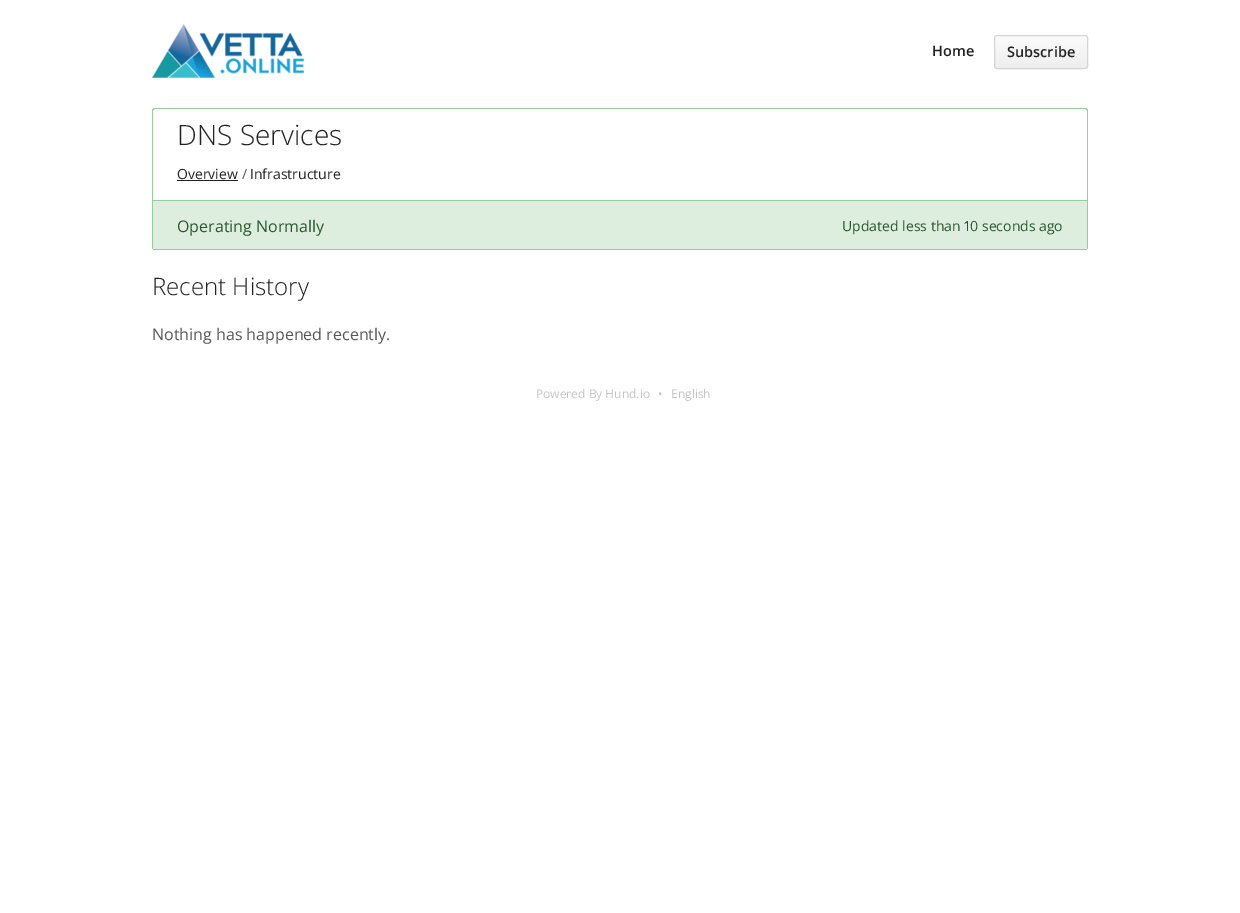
%!PS-Adobe-3.0
%%BoundingBox: 0 0 1240 913
%%LanguageLevel: 3
%%Pages: 1
%%EndComments
%%BeginProlog
/m { moveto } bind def
/l { lineto } bind def
/c { curveto } bind def
/h { closepath } bind def
/S { stroke } bind def
/q { gsave } bind def
/Q { grestore } bind def
/fn { [ exch dup neg 0 0 3 -1 roll 0 0 ] selectfont } def
/tx { moveto show } def
/bx { rectfill } def
/rr { 5 dict begin { /r /h /w /y /x } { exch def } forall
  x r add y moveto x w add y 2 copy h add r arct x w add y h add x 1 index r arct
  x y h add x y r arct x y 2 copy exch w add exch r arct closepath end } def
/im { 5 dict begin { /h /w /y /x /name } { exch def } forall
  gsave x y translate w h scale
  w h 8 [w 0 0 h 0 0] name (r) file false 3 colorimage grestore end } def
%%EndProlog
%%BeginSetup
<< /PageSize [1240 913] >> setpagedevice
%%EndSetup
%%Page: 1 1
0 913 translate 1 -1 scale
4 setmiterlimit
1 setgray
0 0 1240 913 bx
(image0.raw) 152 24 152 54 im
/OpenSans-SemiBold 14.5 fn
0.133 setgray
(Home) 932 56 tx
q
994 35 94 34 3 rr clip newpath
q 994 36 m 1088 36 l 1088 68 l 994 68 l h clip newpath
<< /ShadingType 2 /ColorSpace /DeviceRGB /Coords [1041 36 1041 68] /Extend [true true] /Function << /FunctionType 2 /Domain [0 1] /C0 [0.984 0.984 0.984] /C1 [0.933 0.933 0.933] /N 1 >> >> shfill Q
Q
0.835 setgray
994.5 35.5 93 33 2.5 rr S
0.133 setgray
(Subscribe) 1007 57 tx
0.6 0.8 0.612 setrgbcolor
155 108 m 1085 108 l 1087 108 1088 109 1088 111 c 1088 247 l 1088 249 1087 250 1085 250 c 155 250 l 153 250 152 249 152 247 c 152 111 l 152 109 153 108 155 108 c h 155 109 m 1085 109 l 1086 109 1087 110 1087 111 c 1087 247 l 1087 249 1086 250 1085 250 c 155 250 l 154 250 153 249 153 247 c 153 111 l 153 110 154 109 155 109 c h eofill
/OpenSans-Light 28 fn
0.133 setgray
(DNS Services) 177 145 tx
/OpenSans-Regular 14 fn
(Overview) 177 179 tx
177 180 61 1 bx
0.337 setgray
(/) 242 179 tx
0.133 setgray
(Infrastructure) 250 179 tx
0.867 0.933 0.871 setrgbcolor
153 201 934 48 bx
0.6 0.8 0.612 setrgbcolor
153 200 934 1 bx
153 249 934 1 bx
/OpenSans-Regular 16 fn
0.169 0.337 0.176 setrgbcolor
(Operating Normally) 177 232 tx
/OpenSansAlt-Regular 14 fn
(Updated less than 10 seconds ago) 842 231 tx
/OpenSans-Light 24 fn
0.133 setgray
(Recent History) 152 295 tx
/OpenSans-Regular 16 fn
0.337 setgray
(Nothing has happened recently.) 152 340 tx
/OpenSans-Regular 12 fn
0.769 setgray
(Powered By Hund.io) 536 398 tx
(•) 658 398 tx
(English) 671 398 tx
showpage
%%EOF
